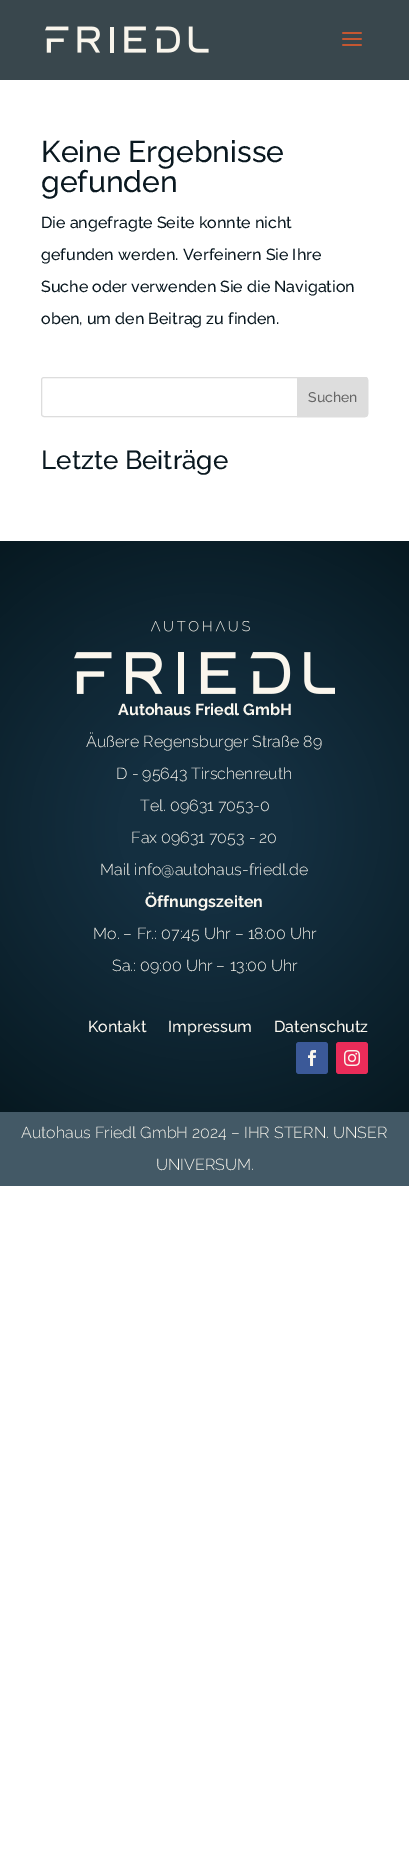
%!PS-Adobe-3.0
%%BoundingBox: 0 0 409 1863
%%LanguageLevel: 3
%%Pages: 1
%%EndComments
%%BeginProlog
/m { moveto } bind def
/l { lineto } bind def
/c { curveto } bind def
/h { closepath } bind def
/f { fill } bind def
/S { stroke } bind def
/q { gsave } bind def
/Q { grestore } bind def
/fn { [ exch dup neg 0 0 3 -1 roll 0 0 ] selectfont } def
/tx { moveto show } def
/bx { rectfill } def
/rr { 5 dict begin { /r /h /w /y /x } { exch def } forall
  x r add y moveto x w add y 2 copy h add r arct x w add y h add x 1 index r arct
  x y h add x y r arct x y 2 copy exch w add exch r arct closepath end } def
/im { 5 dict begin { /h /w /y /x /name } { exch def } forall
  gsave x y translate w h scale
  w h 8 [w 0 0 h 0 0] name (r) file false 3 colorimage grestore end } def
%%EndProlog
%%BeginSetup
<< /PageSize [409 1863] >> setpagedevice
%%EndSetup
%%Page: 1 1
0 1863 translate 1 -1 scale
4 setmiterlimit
1 setgray
0 0 409 1863 bx
0.224 0.278 0.302 setrgbcolor
0 0 409 80 bx
(image0.raw) 45 26 164 27 im
(image1.raw) 342 32 20 14 im
/Raleway-Medium 30 fn
0.039 0.094 0.125 setrgbcolor
(Keine Ergebnisse) 41 162 tx
(gefunden) 41 192 tx
/Raleway-Medium 16 fn
(Die angefragte Seite konnte nicht) 41 228 tx
(gefunden werden. Verfeinern Sie Ihre) 41 260 tx
(Suche oder verwenden Sie die Navigation) 41 292 tx
(oben, um den Beitrag zu finden.) 41 324 tx
0.867 setgray
41.5 377.5 326 39 2.5 rr S
297.5 377.5 m 365 377.5 l 366.5 377.5 367.5 378.5 367.5 380 c 367.5 414 l 367.5 415.5 366.5 416.5 365 416.5 c 297.5 416.5 l h q f Q
S
/Raleway-Medium 14 fn
0.4 setgray
(Suchen) 308 402 tx
/Raleway-Medium 26 fn
0.039 0.094 0.125 setrgbcolor
(Letzte Beiträge) 41 469 tx
q 0 541 m 409 541 l 409 1112 l 0 1112 l h clip newpath 205 827 translate 351 351 scale
<< /ShadingType 3 /ColorSpace /DeviceRGB /Coords [0 0 0 0 0 1] /Extend [true true] /Function << /FunctionType 3 /Domain [0 1] /Functions [<< /FunctionType 2 /Domain [0 1] /C0 [0.078 0.184 0.251] /C1 [0.078 0.184 0.251] /N 1 >> << /FunctionType 2 /Domain [0 1] /C0 [0.078 0.184 0.251] /C1 [0.027 0.098 0.129] /N 1 >>] /Bounds [0.25] /Encode [0 1 0 1] >> >> shfill Q
(image2.raw) 74 621 261 73 im
/Raleway-Bold 16 fn
0.976 0.965 0.933 setrgbcolor
(Autohaus Friedl GmbH) 118 715 tx
/Raleway-Light 16 fn
(Äußere Regensburger Straße 89) 86 747 tx
(D - 95643 Tirschenreuth) 116 779 tx
(Tel. 09631 7053-0) 140 811 tx
(Fax 09631 7053 - 20) 131 843 tx
(Mail info@autohaus-friedl.de) 100 875 tx
/Raleway-Bold 16 fn
(Öffnungszeiten) 145 907 tx
/Raleway-Light 16 fn
(Mo. – Fr.: 07:45 Uhr – 18:00 Uhr) 93 939 tx
(Sa.: 09:00 Uhr – 13:00 Uhr) 112 971 tx
/Raleway-Medium 16 fn
(Kontakt) 88 1032 tx
(Impressum) 168 1032 tx
(Datenschutz) 274 1032 tx
0.231 0.349 0.596 setrgbcolor
296 1042 32 32 3 rr f
(image3.raw) 308 1050 8 16 im
0.918 0.173 0.349 setrgbcolor
336 1042 32 32 3 rr f
(image4.raw) 344 1050 16 16 im
0.263 0.349 0.4 setrgbcolor
0 1112 409 74 bx
/Raleway-Light 16 fn
0.976 0.965 0.933 setrgbcolor
(Autohaus Friedl GmbH 2024 – IHR STERN. UNSER) 21 1138 tx
(UNIVERSUM.) 156 1170 tx
showpage
%%EOF
